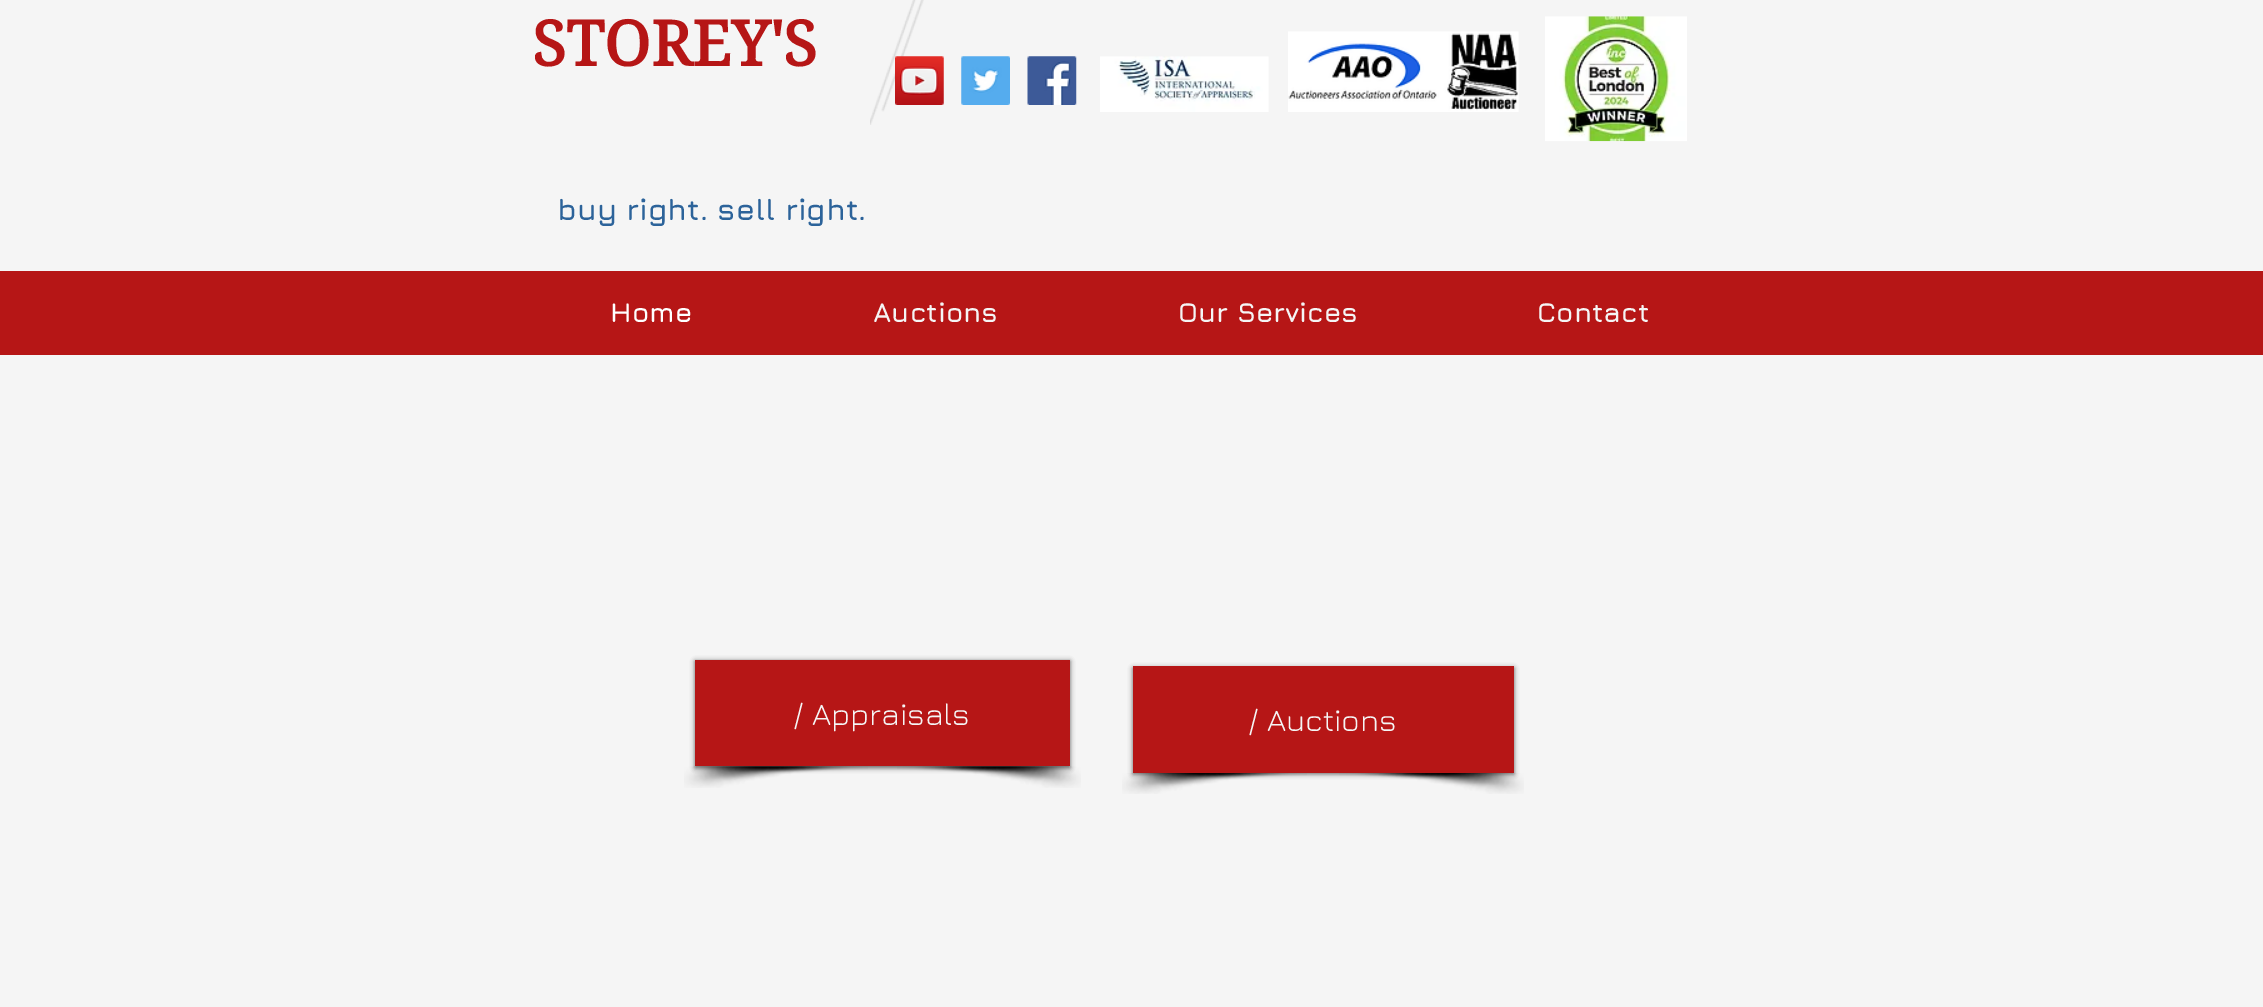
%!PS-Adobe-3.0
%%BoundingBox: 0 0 2263 1007
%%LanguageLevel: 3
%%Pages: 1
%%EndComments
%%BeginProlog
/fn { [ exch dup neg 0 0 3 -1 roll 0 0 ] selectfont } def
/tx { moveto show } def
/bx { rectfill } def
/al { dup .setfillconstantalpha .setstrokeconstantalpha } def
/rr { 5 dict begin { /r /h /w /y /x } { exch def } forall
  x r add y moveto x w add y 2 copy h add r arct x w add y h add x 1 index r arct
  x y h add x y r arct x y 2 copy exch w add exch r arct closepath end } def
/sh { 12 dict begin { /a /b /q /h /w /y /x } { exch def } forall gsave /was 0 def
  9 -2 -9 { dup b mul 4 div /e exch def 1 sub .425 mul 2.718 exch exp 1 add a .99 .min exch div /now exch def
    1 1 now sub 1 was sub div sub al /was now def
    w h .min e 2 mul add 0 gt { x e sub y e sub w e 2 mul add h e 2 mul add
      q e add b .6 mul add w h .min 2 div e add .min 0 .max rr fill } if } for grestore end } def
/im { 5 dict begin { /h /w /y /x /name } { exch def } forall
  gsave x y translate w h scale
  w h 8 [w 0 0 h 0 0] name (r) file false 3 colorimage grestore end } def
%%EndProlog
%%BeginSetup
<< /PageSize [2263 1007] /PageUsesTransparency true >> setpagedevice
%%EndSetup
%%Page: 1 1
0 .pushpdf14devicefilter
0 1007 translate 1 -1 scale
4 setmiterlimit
0.961 setgray
0 0 2263 1007 bx
/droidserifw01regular-Bold 62.5 fn
0.714 0.086 0.086 setrgbcolor
(STOREY'S) 532 66 tx
(image0.raw) 870 0 54 125 im
(image1.raw) 1288 31 231 81 im
(image2.raw) 1545 16 142 126 im
(image3.raw) 895 56 49 49 im
(image4.raw) 961 56 49 49 im
(image5.raw) 1027 56 50 49 im
(image6.raw) 1100 56 169 56 im
/Jura-Bold 30 fn
0.173 0.388 0.604 setrgbcolor
(buy right. sell right.) 557 220 tx
0.714 0.086 0.086 setrgbcolor
0 271 2263 84 bx
/Jura-Bold 27.5 fn
1 setgray
(Home) 610 322 tx
0.961 setgray
(Auctions) 873 322 tx
(Our Services) 1178 322 tx
(Contact) 1537 322 tx
(image7.raw) 684 766 184 22 im
(image8.raw) 897 766 184 22 im
0 setgray
695 661 375 107 0 2.5 0.6 sh
0.714 0.086 0.086 setrgbcolor
695 660 375 106 bx
/Jura-Regular 31.25 fn
0.961 setgray
(/ Appraisals) 793 725 tx
(image9.raw) 1122 773 185 21 im
(image10.raw) 1339 773 185 21 im
0 setgray
1133 668 381 106 0 2.5 0.6 sh
0.714 0.086 0.086 setrgbcolor
1133 666 381 107 bx
0.961 setgray
(/ Auctions) 1248 731 tx
.poppdf14devicefilter showpage
%%EOF
